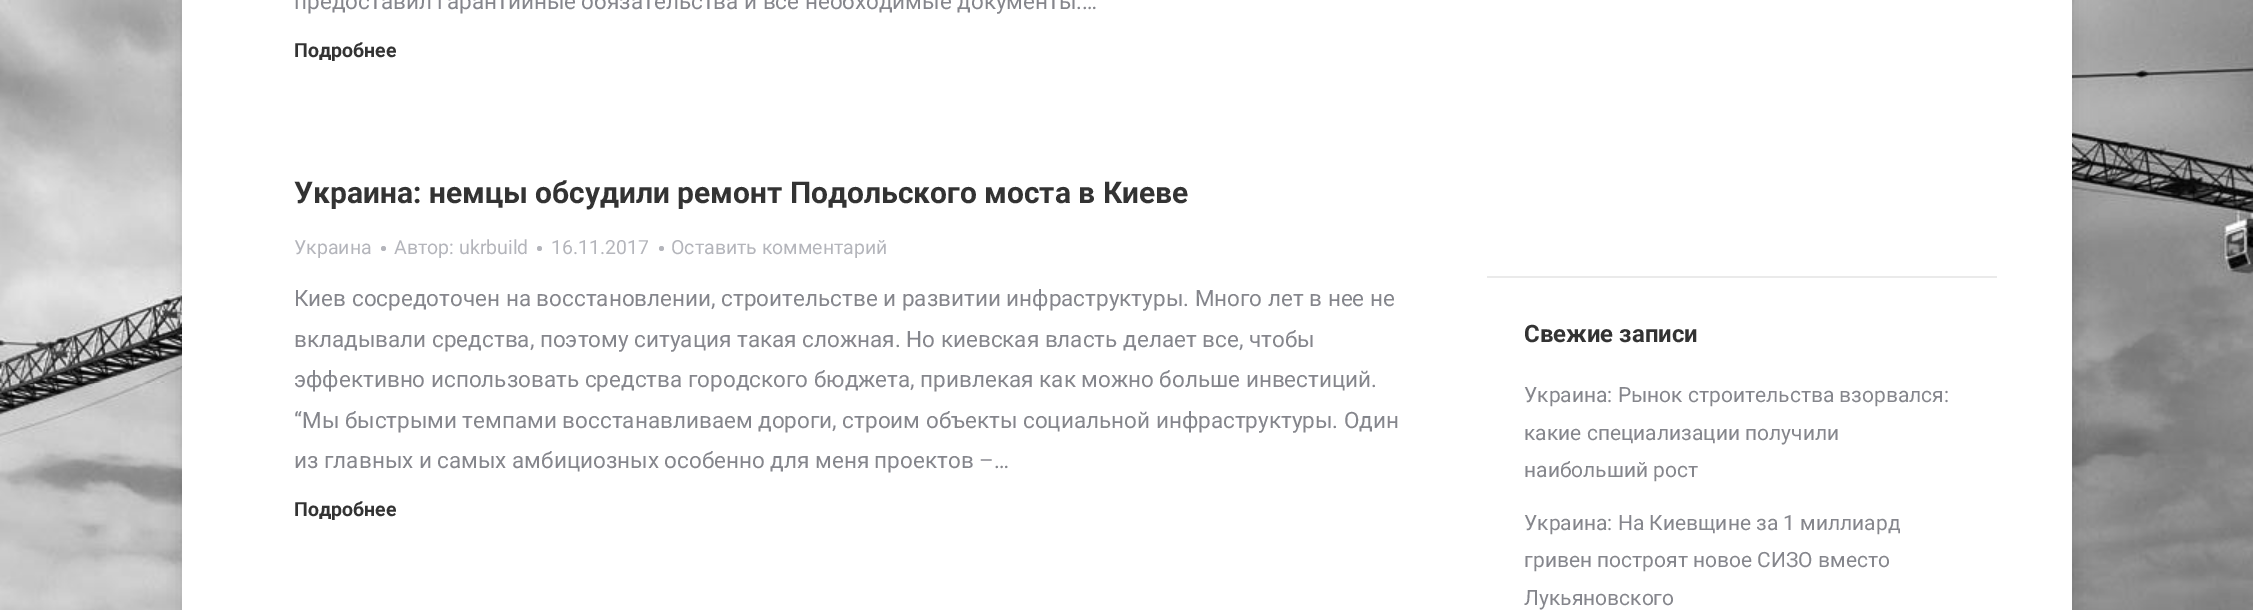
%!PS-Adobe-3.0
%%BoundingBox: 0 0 2253 610
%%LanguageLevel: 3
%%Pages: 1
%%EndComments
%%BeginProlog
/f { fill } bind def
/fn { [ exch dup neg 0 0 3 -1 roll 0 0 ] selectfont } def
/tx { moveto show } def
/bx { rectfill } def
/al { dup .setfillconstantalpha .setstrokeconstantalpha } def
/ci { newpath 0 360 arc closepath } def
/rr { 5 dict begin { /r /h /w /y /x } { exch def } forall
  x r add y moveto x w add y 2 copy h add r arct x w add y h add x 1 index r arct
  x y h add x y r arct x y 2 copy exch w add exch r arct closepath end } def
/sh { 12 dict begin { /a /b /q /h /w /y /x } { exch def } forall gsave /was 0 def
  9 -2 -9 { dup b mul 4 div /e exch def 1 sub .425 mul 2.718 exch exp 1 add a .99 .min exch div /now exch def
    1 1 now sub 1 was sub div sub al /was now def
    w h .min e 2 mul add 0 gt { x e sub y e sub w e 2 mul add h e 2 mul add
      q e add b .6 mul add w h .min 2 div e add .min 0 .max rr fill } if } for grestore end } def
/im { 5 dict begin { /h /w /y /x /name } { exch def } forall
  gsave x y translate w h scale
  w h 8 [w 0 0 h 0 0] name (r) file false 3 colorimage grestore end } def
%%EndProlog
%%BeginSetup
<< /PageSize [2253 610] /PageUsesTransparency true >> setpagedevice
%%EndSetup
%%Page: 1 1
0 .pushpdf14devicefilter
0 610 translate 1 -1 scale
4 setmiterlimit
1 setgray
0 0 2253 610 bx
(image0.raw) 0 0 2253 610 im
0 setgray
182 -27 1890 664 0 9 0.15 sh
1 setgray
182 0 1890 610 bx
/Roboto-Regular 22.5 fn
0.522 0.525 0.549 setrgbcolor
(предоставил гарантийные обязательства и все необходимые документы.…) 294 9 tx
/Roboto-Bold 19.5 fn
0.2 setgray
(Подробнее) 294 57 tx
/Roboto-Bold 30 fn
(Украина: немцы обсудили ремонт Подольского моста в Киеве) 294 203 tx
/Roboto-Regular 19.5 fn
0.706 0.71 0.733 setrgbcolor
(Украина) 294 254 tx
383.5 248.5 2.5 ci f
(Автор: ukrbuild) 394 254 tx
539.5 248.5 2.5 ci f
(16.11.2017) 551 254 tx
661.5 248.5 2.5 ci f
(Оставить комментарий) 671 254 tx
/Roboto-Regular 22.5 fn
0.522 0.525 0.549 setrgbcolor
(Киев сосредоточен на восстановлении, строительстве и развитии инфраструктуры. Много лет в нее не) 294 306 tx
(вкладывали средства, поэтому ситуация такая сложная. Но киевская власть делает все, чтобы) 294 347 tx
(эффективно использовать средства городского бюджета, привлекая как можно больше инвестиций.) 294 387 tx
(“Мы быстрыми темпами восстанавливаем дороги, строим объекты социальной инфраструктуры. Один) 294 428 tx
(из главных и самых амбициозных особенно для меня проектов –…) 294 468 tx
/Roboto-Bold 19.5 fn
0.2 setgray
(Подробнее) 294 516 tx
0.918 setgray
1487 276 510 2 bx
/Roboto-Bold 24 fn
0.2 setgray
(Свежие записи) 1524 342 tx
/Roboto-Regular 21 fn
0.522 0.525 0.549 setrgbcolor
(Украина: Рынок строительства взорвался:) 1524 402 tx
(какие специализации получили) 1524 440 tx
(наибольший рост) 1524 477 tx
(Украина: На Киевщине за 1 миллиард) 1524 530 tx
(гривен построят новое СИЗО вместо) 1524 567 tx
(Лукьяновского) 1524 605 tx
.poppdf14devicefilter showpage
%%EOF
